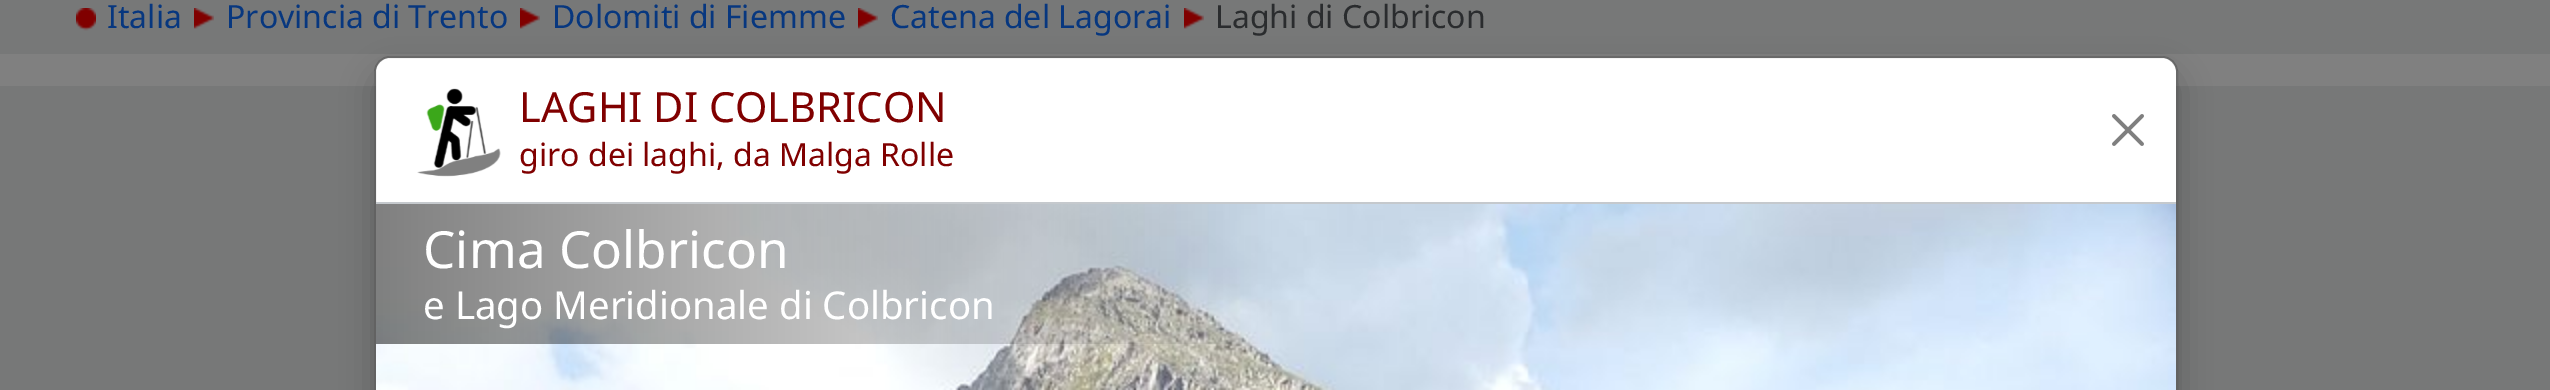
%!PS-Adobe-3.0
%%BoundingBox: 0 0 2550 390
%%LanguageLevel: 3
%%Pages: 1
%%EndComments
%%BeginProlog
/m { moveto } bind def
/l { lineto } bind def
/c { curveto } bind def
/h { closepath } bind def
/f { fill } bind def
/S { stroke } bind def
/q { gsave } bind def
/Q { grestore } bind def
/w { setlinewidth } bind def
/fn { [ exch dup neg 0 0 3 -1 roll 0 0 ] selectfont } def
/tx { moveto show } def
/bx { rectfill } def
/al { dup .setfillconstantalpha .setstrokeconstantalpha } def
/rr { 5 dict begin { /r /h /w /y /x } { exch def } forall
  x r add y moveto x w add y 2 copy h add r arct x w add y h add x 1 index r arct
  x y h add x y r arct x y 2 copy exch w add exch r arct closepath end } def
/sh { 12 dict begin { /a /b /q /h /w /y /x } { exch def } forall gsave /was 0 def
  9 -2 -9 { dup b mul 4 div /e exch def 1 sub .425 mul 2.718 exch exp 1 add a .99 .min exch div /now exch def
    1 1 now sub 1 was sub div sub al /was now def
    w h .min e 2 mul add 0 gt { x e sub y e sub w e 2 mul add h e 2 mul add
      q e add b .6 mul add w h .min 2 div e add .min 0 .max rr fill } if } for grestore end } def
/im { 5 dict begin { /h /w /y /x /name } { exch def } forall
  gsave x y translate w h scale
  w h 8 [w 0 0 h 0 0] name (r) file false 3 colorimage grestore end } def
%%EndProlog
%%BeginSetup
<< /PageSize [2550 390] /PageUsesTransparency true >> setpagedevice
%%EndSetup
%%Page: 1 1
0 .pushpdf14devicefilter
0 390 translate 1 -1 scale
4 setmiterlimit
0.502 setgray
0 0 2550 390 bx
0.467 0.471 0.471 setrgbcolor
0 0 2550 54 bx
(image0.raw) 76 8 20 23 im
/NotoSans-Regular 32 fn
0.027 0.216 0.498 setrgbcolor
(Italia) 107 28 tx
(image1.raw) 194 8 20 21 im
(Provincia di Trento) 226 28 tx
(image1.raw) 520 8 20 21 im
(Dolomiti di Fiemme) 552 28 tx
(image1.raw) 858 8 20 21 im
(Catena del Lagorai) 890 28 tx
(image1.raw) 1184 8 20 21 im
0.165 0.173 0.18 setrgbcolor
(Laghi di Colbricon) 1215 28 tx
0.467 0.471 0.471 setrgbcolor
0 86 2550 304 bx
q
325 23 m 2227 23 l 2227 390 l 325 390 l h 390 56 m 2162 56 l 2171 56 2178 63 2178 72 c 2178 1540 l 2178 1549 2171 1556 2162 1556 c 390 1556 l 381 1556 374 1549 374 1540 c 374 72 l 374 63 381 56 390 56 c h eoclip newpath
0 setgray
374 72 1804 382 16 16 0.2 sh
Q
1 setgray
390 58 m 2162 58 l 2169.5 58 2176 64.5 2176 72 c 2176 390 l 376 390 l 376 72 l 376 64.5 382.5 58 390 58 c h f
0.18 al
0 setgray
2 w
375 57 1802 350 15 rr S
1 al
0.773 0.788 0.804 setrgbcolor
376 202 1800 2 bx
(image2.raw) 417 88 84 89 im
/NotoSans-Regular 41.6 fn
0.502 0 0 setrgbcolor
(LAGHI DI COLBRICON) 519 122 tx
/NotoSans-Regular 32 fn
(giro dei laghi, da Malga Rolle) 519 166 tx
(image3.raw) 2112 114 32 32 im
(image4.raw) 376 204 1800 186 im
/NotoSans-Regular 51.25 fn
1 setgray
(Cima Colbricon) 423 268 tx
/NotoSans-Regular 38.4 fn
(e Lago Meridionale di Colbricon) 423 319 tx
.poppdf14devicefilter showpage
%%EOF
